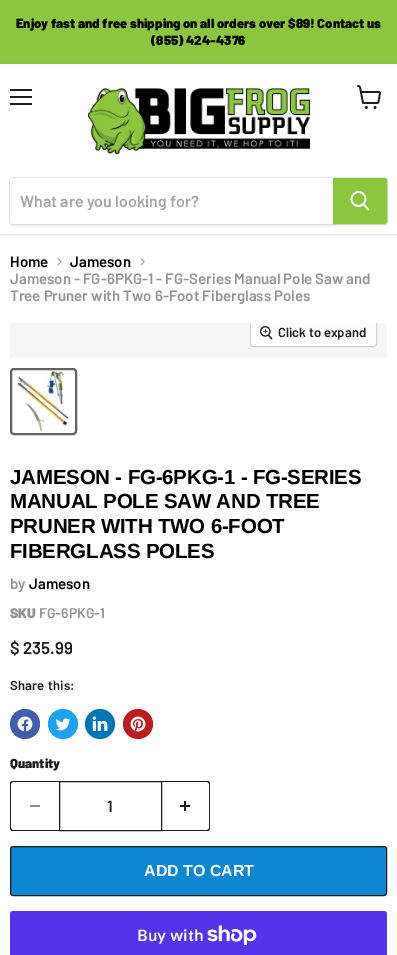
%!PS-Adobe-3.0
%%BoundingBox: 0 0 397 955
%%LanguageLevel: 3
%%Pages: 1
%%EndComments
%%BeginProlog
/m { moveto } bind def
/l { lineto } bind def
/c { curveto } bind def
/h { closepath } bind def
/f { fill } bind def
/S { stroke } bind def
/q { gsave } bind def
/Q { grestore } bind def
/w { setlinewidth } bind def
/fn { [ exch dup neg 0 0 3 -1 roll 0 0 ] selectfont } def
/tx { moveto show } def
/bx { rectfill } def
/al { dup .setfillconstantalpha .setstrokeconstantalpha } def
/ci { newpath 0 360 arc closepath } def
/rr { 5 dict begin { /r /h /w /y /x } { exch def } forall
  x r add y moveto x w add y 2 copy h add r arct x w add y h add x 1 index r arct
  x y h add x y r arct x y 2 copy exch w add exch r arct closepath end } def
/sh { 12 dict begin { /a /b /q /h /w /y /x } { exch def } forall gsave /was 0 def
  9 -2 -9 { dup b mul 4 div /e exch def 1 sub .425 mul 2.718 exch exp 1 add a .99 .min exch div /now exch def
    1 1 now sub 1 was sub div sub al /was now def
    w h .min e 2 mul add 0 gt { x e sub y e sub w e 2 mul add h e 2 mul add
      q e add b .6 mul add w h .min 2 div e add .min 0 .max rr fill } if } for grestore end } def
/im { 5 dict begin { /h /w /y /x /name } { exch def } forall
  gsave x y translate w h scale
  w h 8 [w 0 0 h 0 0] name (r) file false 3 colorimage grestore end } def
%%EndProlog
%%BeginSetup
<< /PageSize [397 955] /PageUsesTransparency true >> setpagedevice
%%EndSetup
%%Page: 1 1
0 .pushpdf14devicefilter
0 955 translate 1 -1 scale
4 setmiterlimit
1 setgray
0 0 397 955 bx
0.549 0.776 0.243 setrgbcolor
0 0 397 64 bx
/Barlow-Black 13.1 fn
0 setgray
(Enjoy fast and free shipping on all orders over $89! Contact us) 16 28 tx
(\(855\) 424-4376) 151 45 tx
q
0 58 m 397 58 l 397 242 l 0 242 l h 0 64 m 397 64 l 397 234 l 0 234 l h eoclip newpath
0.502 setgray
0 65 397 170 0 2 0.25 sh
Q
0.114 setgray
10 89 22 2 bx
10 96 22 2 bx
10 103 22 2 bx
(image0.raw) 357 85 24 24 im
(image1.raw) 88 88 223 67 im
0.502 setgray
9 179 379 48 4 1.5 0.11 sh
0.2 al
9.5 177.5 378 47 3.5 rr S
1 al
1 setgray
13 178 m 333 178 l 333 224 l 13 224 l 11.5 224 10 222.5 10 221 c 10 181 l 10 179.5 11.5 178 13 178 c h f
q
20 191 303 19 rectclip
/Barlow-SemiBold 16 fn
0.647 setgray
(What are you looking for?) 20 207 tx
Q
0.549 0.776 0.243 setrgbcolor
333.5 178.5 m 384 178.5 l 385.5 178.5 386.5 179.5 386.5 181 c 386.5 221 l 386.5 222.5 385.5 223.5 384 223.5 c 333.5 223.5 l h q f Q
S
1 setgray
1.7 w
1 setlinecap
368.5 209.5 m 363.5 204.5 l S
0 setlinecap
358.5 199 7 ci S
/Barlow-SemiBold 15 fn
0 setgray
(Home) 10 267 tx
(image2.raw) 57 258 5 7 im
(Jameson) 70 267 tx
(image2.raw) 140 258 5 7 im
0.58 setgray
(Jameson - FG-6PKG-1 - FG-Series Manual Pole Saw and) 10 284 tx
(Tree Pruner with Two 6-Foot Fiberglass Poles) 10 301 tx
0.965 setgray
10 323 377 35 bx
q
10 323 377 35 rectclip
0.82 setgray
1 w
250.5 318.5 126 28 3.5 rr S
Q
0.9 al
1 setgray
251 323 m 376 323 l 376 343 l 376 344.5 374.5 346 373 346 c 254 346 l 252.5 346 251 344.5 251 343 c h f
1 al
(image3.raw) 260 326 13 14 im
/Barlow-SemiBold 13.1 fn
0.114 setgray
(Click to expand) 278 337 tx
0.384 setgray
2 w
11 369 65 65 3 rr S
(image4.raw) 16 371 53 60 im
/LiberationSans-Bold 20.5 fn
0 setgray
10 484 m -0.2 0 (JAMESON - FG-6PKG-1 - FG-SERIES) ashow
10 508 m -0.2 0 (MANUAL POLE SAW AND TREE) ashow
10 533 m -0.2 0 (PRUNER WITH TWO 6-FOOT) ashow
10 558 m -0.2 0 (FIBERGLASS POLES) ashow
/Barlow-SemiBold 15 fn
0.58 setgray
(by) 10 589 tx
0 setgray
(Jameson) 29 589 tx
/Barlow-Black 14 fn
0.58 setgray
(SKU) 10 618 tx
/Barlow-SemiBold 14 fn
(FG-6PKG-1) 39 618 tx
/Barlow-SemiBold 17 fn
0.114 setgray
($ 235.99) 10 654 tx
/Barlow-SemiBold 13.1 fn
10 690 m 2 0 32 (Share this:) widthshow
0.259 0.365 0.671 setrgbcolor
25 724 15 ci f
(image5.raw) 17 716 16 16 im
0.114 0.631 0.949 setrgbcolor
63 724 15 ci f
(image6.raw) 55 718 16 13 im
0 0.467 0.71 setrgbcolor
100 724 15 ci f
(image7.raw) 92 716 16 15 im
0.741 0.11 0.11 setrgbcolor
138 724 15 ci f
(image8.raw) 130 716 16 16 im
/Barlow-Black 13.1 fn
0.114 setgray
(Quantity) 10 768 tx
13 781 m 59 781 l 59 831 l 13 831 l 11 831 10 830 10 828 c 10 784 l 10 782 11 781 13 781 c h 13 782 m 59 782 l 59 830 l 13 830 l 12 830 11 829 11 828 c 11 784 l 11 783 12 782 13 782 c h eofill
0.557 setgray
30 805 10 2 bx
0.114 setgray
1 w
59.5 781.5 102 49 rectstroke
/Barlow-SemiBold 16 fn
(1) 107 812 tx
162 781 m 207 781 l 209 781 210 782 210 784 c 210 828 l 210 830 209 831 207 831 c 162 831 l h 162 782 m 207 782 l 208 782 209 783 209 784 c 209 828 l 209 829 208 830 207 830 c 162 830 l h eofill
(image9.raw) 180 801 10 10 im
0.047 0.533 0.824 setrgbcolor
10.5 846.5 376 49 2.5 rr q f Q
0.114 setgray
S
/LiberationSans-Bold 16 fn
1 setgray
(ADD TO CART) 144 876 tx
0.329 0.2 0.922 setrgbcolor
10 911 377 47 3 rr f
/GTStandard-SemiBold 16 fn
1 setgray
(Buy with) 137 941 tx
(image10.raw) 207 925 50 20 im
.poppdf14devicefilter showpage
%%EOF
